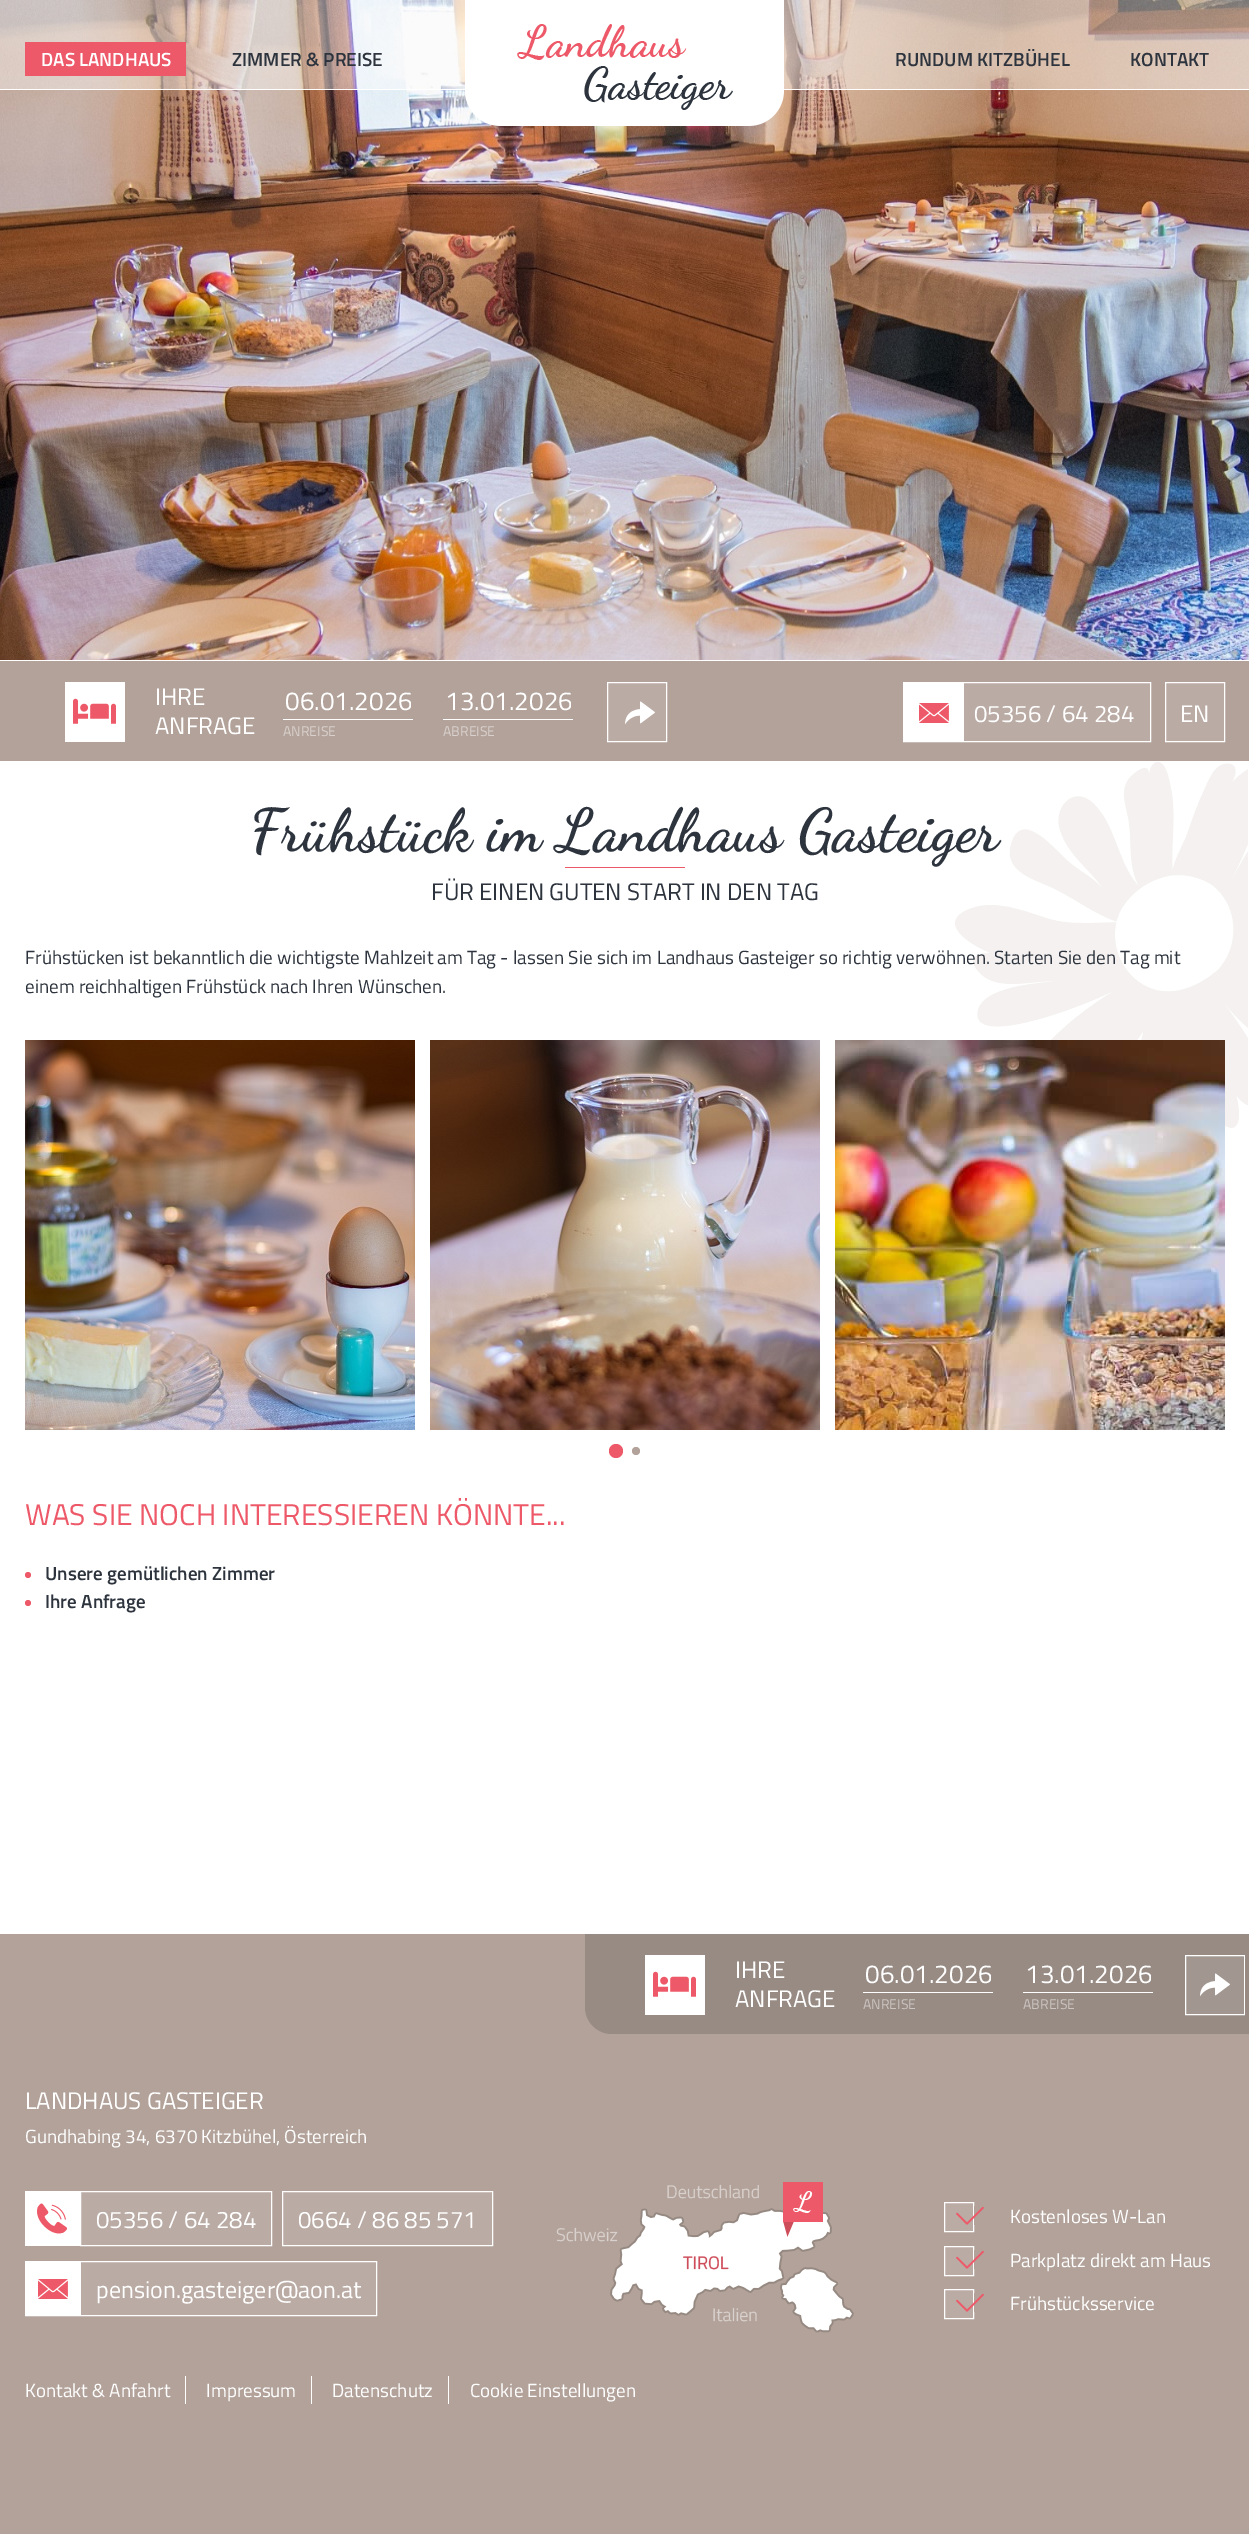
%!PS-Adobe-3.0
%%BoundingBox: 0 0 1249 2534
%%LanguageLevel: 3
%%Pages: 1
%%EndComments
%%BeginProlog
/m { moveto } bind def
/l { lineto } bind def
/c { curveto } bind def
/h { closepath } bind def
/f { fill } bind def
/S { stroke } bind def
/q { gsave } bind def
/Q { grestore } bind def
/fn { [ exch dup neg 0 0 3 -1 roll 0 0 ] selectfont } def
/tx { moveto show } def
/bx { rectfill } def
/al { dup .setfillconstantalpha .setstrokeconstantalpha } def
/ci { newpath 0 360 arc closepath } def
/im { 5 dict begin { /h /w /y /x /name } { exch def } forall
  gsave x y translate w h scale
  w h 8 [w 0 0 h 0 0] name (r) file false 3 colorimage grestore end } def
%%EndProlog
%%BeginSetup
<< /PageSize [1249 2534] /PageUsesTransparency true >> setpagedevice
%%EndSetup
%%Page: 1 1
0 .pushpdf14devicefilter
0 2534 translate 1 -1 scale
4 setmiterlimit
1 setgray
0 0 1249 2534 bx
(image1.raw) 0 0 1249 660 im
0.4 al
0 0 1249 89 bx
1 al
0 89 1249 1 bx
(image0.raw) 465 0 319 126 im
0.929 0.349 0.408 setrgbcolor
25 42 161 34 bx
/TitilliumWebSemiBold-SemiBold 19 fn
1 setgray
(DAS LANDHAUS) 41 66 tx
0.176 0.204 0.243 setrgbcolor
(ZIMMER & PREISE) 232 66 tx
(RUNDUM KITZBÜHEL) 895 66 tx
(KONTAKT) 1130 66 tx
0.698 0.635 0.604 setrgbcolor
0 661 1249 100 bx
1 setgray
65 682 60 60 bx
(image2.raw) 73 698 43 26 im
/TitilliumWeb-Regular 24 fn
(IHRE) 155 705 tx
(ANFRAGE) 155 734 tx
283 719 130 1 bx
q
285 682 126 37 rectclip
/TitilliumWeb-Regular 26 fn
(06.01.2026) 285 710 tx
Q
/TitilliumWeb-Regular 14 fn
0.851 0.82 0.804 setrgbcolor
(ANREISE) 283 736 tx
1 setgray
443 719 130 1 bx
q
445 682 126 37 rectclip
/TitilliumWeb-Regular 26 fn
(13.01.2026) 445 710 tx
Q
0.851 0.82 0.804 setrgbcolor
(ABREISE) 443 736 tx
0.729 0.671 0.643 setrgbcolor
607.5 682.5 m 666.5 682.5 l 666.5 741.5 l 607.5 741.5 l h q f Q
1 setgray
S
(image3.raw) 625 701 30 24 im
0.729 0.671 0.643 setrgbcolor
964 683 186 58 bx
1 setgray
903.5 682.5 247 59 rectstroke
904 683 60 58 bx
(image4.raw) 919 703 30 20 im
/TitilliumWeb-Regular 24 fn
(05356 / 64 284) 974 722 tx
0.729 0.671 0.643 setrgbcolor
1165.5 682.5 m 1224.5 682.5 l 1224.5 741.5 l 1165.5 741.5 l h q f Q
1 setgray
S
(EN) 1180 722 tx
(image5.raw) 955 762 293 366 im
/DancingScript-Bold 60 fn
0.176 0.204 0.243 setrgbcolor
(Frühstück im Landhaus Gasteiger) 250 850 tx
0.929 0.349 0.408 setrgbcolor
565 867 120 1 bx
/TitilliumWeb-Regular 24 fn
0.176 0.204 0.243 setrgbcolor
(FÜR EINEN GUTEN START IN DEN TAG) 431 900 tx
/TitilliumWeb-Regular 19 fn
(Frühstücken ist bekanntlich die wichtigste Mahlzeit am Tag - lassen Sie sich im Landhaus Gasteiger so richtig verwöhnen. Starten Sie den Tag mit) 25 964 tx
(einem reichhaltigen Frühstück nach Ihren Wünschen.) 25 993 tx
(image6.raw) 25 1040 390 390 im
(image7.raw) 430 1040 390 390 im
(image8.raw) 835 1040 390 390 im
0.929 0.349 0.408 setrgbcolor
616 1451 7 ci f
0.698 0.635 0.604 setrgbcolor
636 1451 4 ci f
/TitilliumWeb-Regular 30 fn
0.929 0.349 0.408 setrgbcolor
(WAS SIE NOCH INTERESSIEREN KÖNNTE...) 25 1525 tx
28 1575 3 ci f
/TitilliumWebSemiBold-SemiBold 19 fn
0.176 0.204 0.243 setrgbcolor
(Unsere gemütlichen Zimmer) 45 1580 tx
0.929 0.349 0.408 setrgbcolor
28 1603 3 ci f
0.176 0.204 0.243 setrgbcolor
(Ihre Anfrage) 45 1608 tx
0.698 0.635 0.604 setrgbcolor
0 1934 1249 600 bx
0.596 0.545 0.518 setrgbcolor
585 1934 m 1245 1934 l 1245 2034 l 612 2034 l 597 2034 585 2022 585 2007 c h f
1 setgray
645 1955 60 60 bx
(image2.raw) 653 1971 43 26 im
/TitilliumWeb-Regular 24 fn
(IHRE) 735 1978 tx
(ANFRAGE) 735 2007 tx
863 1992 130 1 bx
q
865 1955 126 37 rectclip
/TitilliumWeb-Regular 26 fn
(06.01.2026) 865 1983 tx
Q
/TitilliumWeb-Regular 14 fn
0.8 0.773 0.761 setrgbcolor
(ANREISE) 863 2009 tx
1 setgray
1023 1992 130 1 bx
q
1025 1955 126 37 rectclip
/TitilliumWeb-Regular 26 fn
(13.01.2026) 1025 1983 tx
Q
0.8 0.773 0.761 setrgbcolor
(ABREISE) 1023 2009 tx
0.635 0.592 0.565 setrgbcolor
1185.5 1955.5 m 1244.5 1955.5 l 1244.5 2014.5 l 1185.5 2014.5 l h q f Q
1 setgray
S
(image9.raw) 1200 1973 30 24 im
0.596 0.545 0.518 setrgbcolor
1245 1934 4 100 bx
/TitilliumWeb-Regular 24 fn
1 setgray
(LANDHAUS GASTEIGER) 25 2109 tx
/TitilliumWeb-Regular 19 fn
(Gundhabing 34, 6370 Kitzbühel, Österreich) 25 2143 tx
25 2191 55 55 bx
(image10.raw) 37 2203 30 31 im
0.729 0.671 0.643 setrgbcolor
80.5 2191.5 m 271.5 2191.5 l 271.5 2245.5 l 80.5 2245.5 l h q f Q
1 setgray
S
/TitilliumWeb-Regular 24 fn
(05356 / 64 284) 96 2228 tx
0.729 0.671 0.643 setrgbcolor
282.5 2191.5 m 492.5 2191.5 l 492.5 2245.5 l 282.5 2245.5 l h q f Q
1 setgray
S
(0664 / 86 85 571) 298 2228 tx
0.729 0.671 0.643 setrgbcolor
81 2262 295 53 bx
1 setgray
25.5 2261.5 351 54 rectstroke
26 2262 55 53 bx
(image4.raw) 38 2279 30 20 im
(pension.gasteiger@aon.at) 96 2298 tx
(image11.raw) 556 2182 298 151 im
0.729 0.671 0.643 setrgbcolor
944.5 2202.5 m 973.5 2202.5 l 973.5 2231.5 l 944.5 2231.5 l h q f Q
1 setgray
S
(image12.raw) 956 2206 28 19 im
/TitilliumWeb-Regular 19 fn
(Kostenloses W-Lan) 1010 2223 tx
0.729 0.671 0.643 setrgbcolor
944.5 2246.5 m 973.5 2246.5 l 973.5 2275.5 l 944.5 2275.5 l h q f Q
1 setgray
S
(image12.raw) 956 2250 28 19 im
(Parkplatz direkt am Haus) 1010 2267 tx
0.729 0.671 0.643 setrgbcolor
944.5 2289.5 m 973.5 2289.5 l 973.5 2318.5 l 944.5 2318.5 l h q f Q
1 setgray
S
(image12.raw) 956 2293 28 19 im
(Frühstücksservice) 1010 2310 tx
(Kontakt & Anfahrt) 25 2397 tx
185 2376 1 28 bx
(Impressum) 206 2397 tx
311 2376 1 28 bx
(Datenschutz) 332 2397 tx
448 2376 1 28 bx
(Cookie Einstellungen) 470 2397 tx
.poppdf14devicefilter showpage
%%EOF
